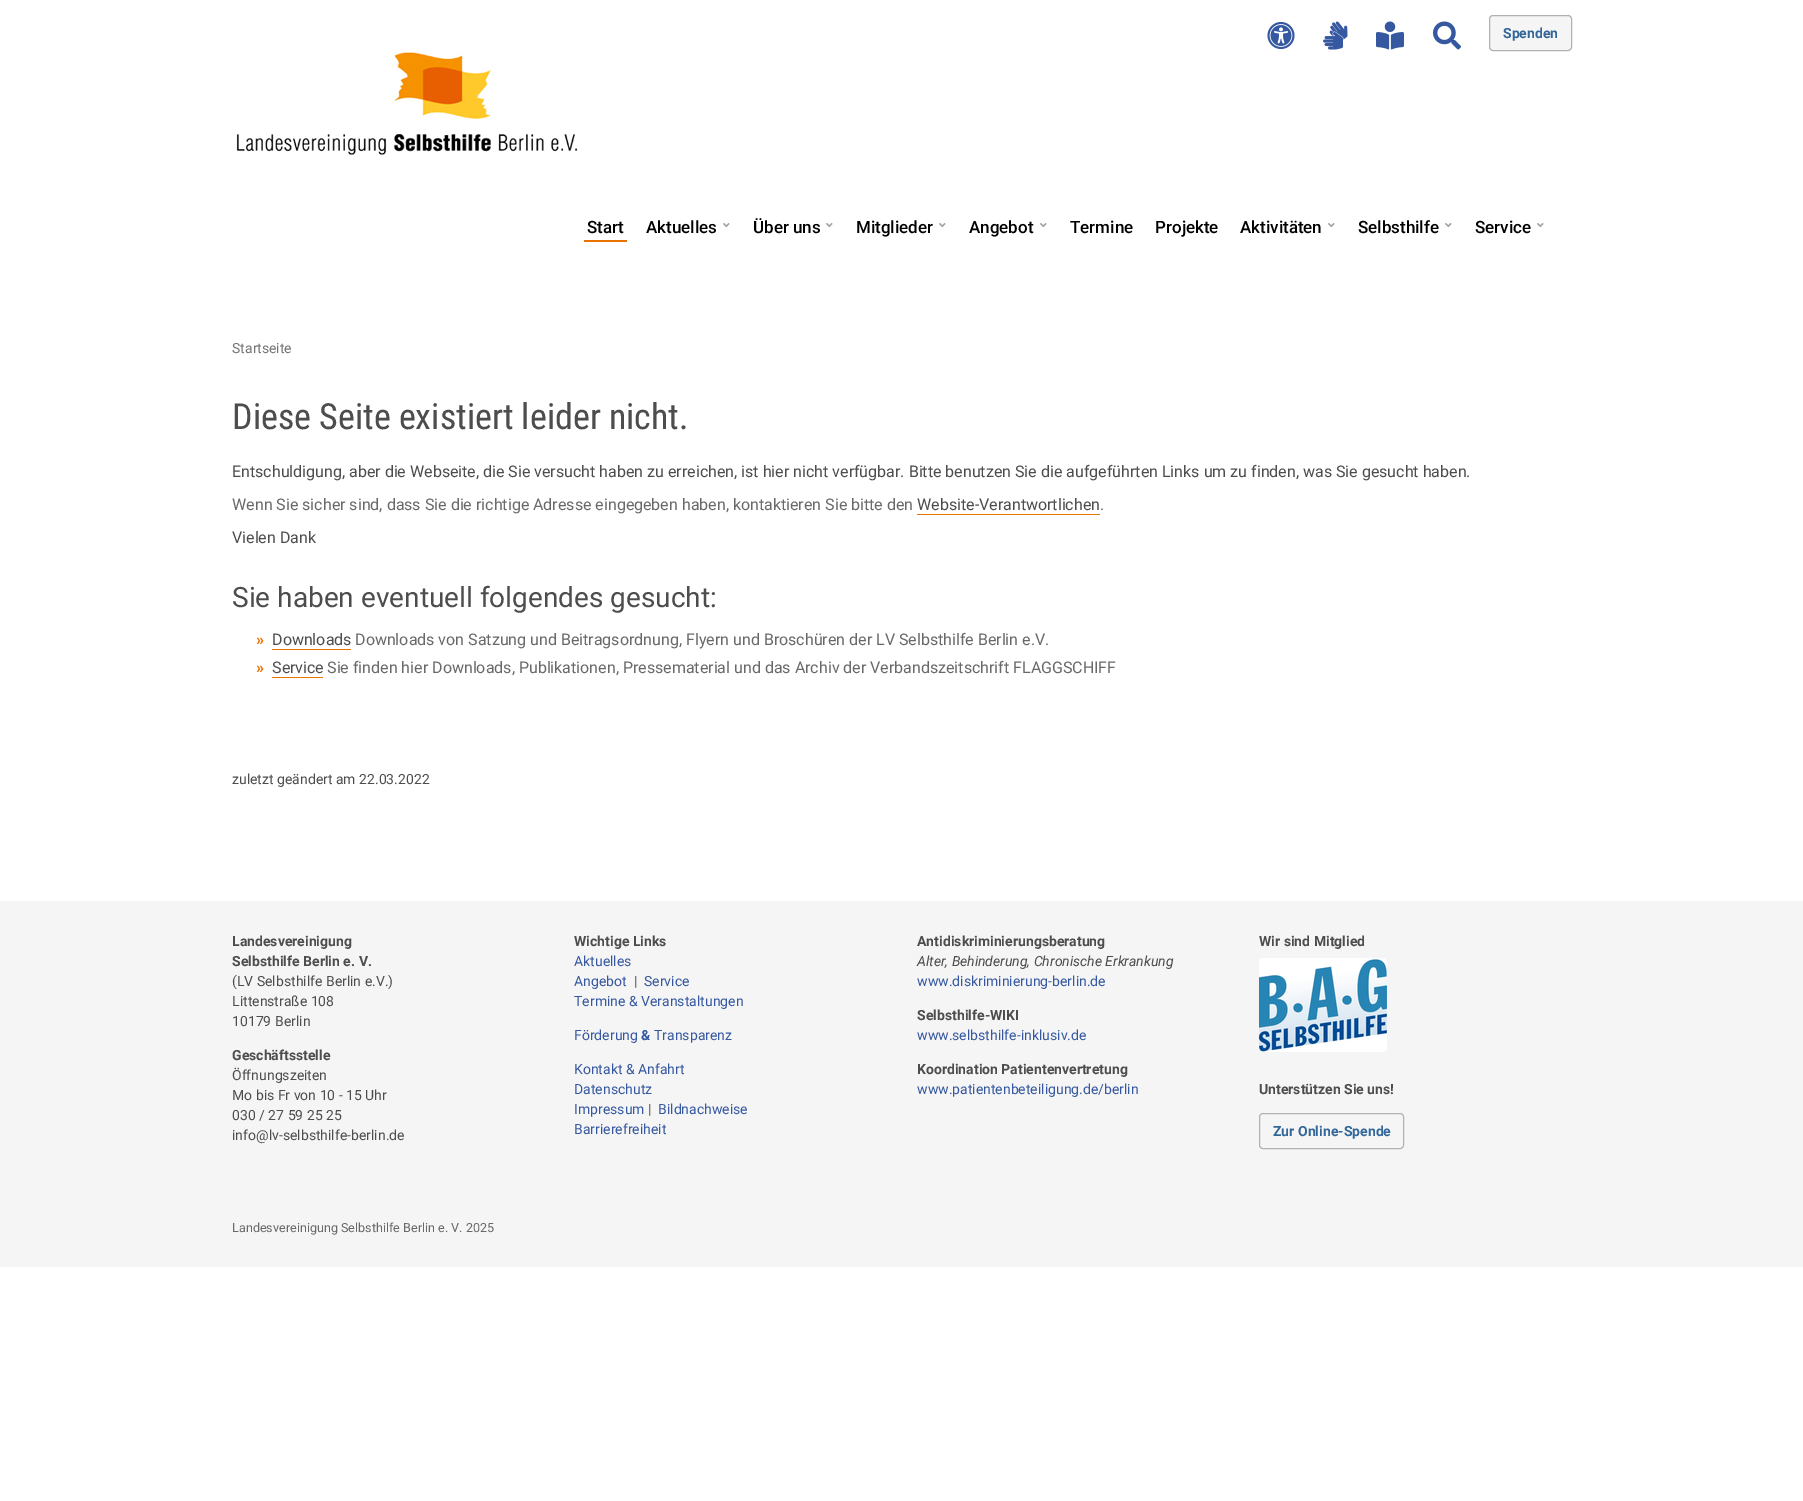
%!PS-Adobe-3.0
%%BoundingBox: 0 0 1803 1501
%%LanguageLevel: 3
%%Pages: 1
%%EndComments
%%BeginProlog
/f { fill } bind def
/S { stroke } bind def
/q { gsave } bind def
/Q { grestore } bind def
/fn { [ exch dup neg 0 0 3 -1 roll 0 0 ] selectfont } def
/tx { moveto show } def
/bx { rectfill } def
/rr { 5 dict begin { /r /h /w /y /x } { exch def } forall
  x r add y moveto x w add y 2 copy h add r arct x w add y h add x 1 index r arct
  x y h add x y r arct x y 2 copy exch w add exch r arct closepath end } def
/im { 5 dict begin { /h /w /y /x /name } { exch def } forall
  gsave x y translate w h scale
  w h 8 [w 0 0 h 0 0] name (r) file false 3 colorimage grestore end } def
%%EndProlog
%%BeginSetup
<< /PageSize [1803 1501] >> setpagedevice
%%EndSetup
%%Page: 1 1
0 1501 translate 1 -1 scale
4 setmiterlimit
1 setgray
0 0 1803 1501 bx
(image0.raw) 1267 21 28 29 im
(image1.raw) 1323 21 25 29 im
(image2.raw) 1376 21 28 29 im
(image3.raw) 1433 21 28 29 im
0.961 setgray
1489.5 15.5 82 35 3.5 rr q f Q
0.698 setgray
S
/Roboto-Bold 14 fn
0.2 0.4 0.6 setrgbcolor
(Spenden) 1503 38 tx
(image4.raw) 236 51 342 104 im
0.914 0.451 0 setrgbcolor
584 240 43 2 bx
/Roboto-Medium 17 fn
0 setgray
(Start) 587 233 tx
(Aktuelles) 646 233 tx
(image5.raw) 723 223 7 5 im
(Über uns) 753 233 tx
(image5.raw) 826 223 7 5 im
(Mitglieder) 856 233 tx
(image5.raw) 939 223 7 5 im
(Angebot) 969 233 tx
(image5.raw) 1040 223 7 5 im
(Termine) 1070 233 tx
(Projekte) 1155 233 tx
(Aktivitäten) 1240 233 tx
(image5.raw) 1328 223 7 5 im
(Selbsthilfe) 1358 233 tx
(image5.raw) 1445 223 7 5 im
(Service) 1475 233 tx
(image5.raw) 1537 223 7 5 im
/Roboto-Regular 14 fn
0.459 setgray
(Startseite) 232 353 tx
/RobotoCondensed-Regular 36 fn
0.302 setgray
(Diese Seite existiert leider nicht.) 232 429 tx
/Roboto-Regular 16 fn
(Entschuldigung, aber die Webseite, die Sie versucht haben zu erreichen, ist hier nicht verfügbar. Bitte benutzen Sie die aufgeführten Links um zu finden, was Sie gesucht haben.) 232 477 tx
0.412 setgray
(Wenn Sie sicher sind, dass Sie die richtige Adresse eingegeben haben, kontaktieren Sie bitte den) 232 510 tx
0.302 setgray
(Website-Verantwortlichen) 917 510 tx
0.914 0.451 0 setrgbcolor
917 514 183 1 bx
0.412 setgray
(.) 1100 510 tx
0.302 setgray
(Vielen Dank) 232 543 tx
/Roboto-Regular 28 fn
(Sie haben eventuell folgendes gesucht:) 232 607 tx
/Roboto-Bold 16 fn
0.914 0.451 0 setrgbcolor
(») 256 645 tx
/Roboto-Regular 16 fn
0.302 setgray
(Downloads) 272 645 tx
0.914 0.451 0 setrgbcolor
272 649 79 1 bx
0.412 setgray
(Downloads von Satzung und Beitragsordnung, Flyern und Broschüren der LV Selbsthilfe Berlin e.V.) 355 645 tx
/Roboto-Bold 16 fn
0.914 0.451 0 setrgbcolor
(») 256 673 tx
/Roboto-Regular 16 fn
0.302 setgray
(Service) 272 673 tx
0.914 0.451 0 setrgbcolor
272 677 51 1 bx
0.412 setgray
(Sie finden hier Downloads, Publikationen, Pressematerial und das Archiv der Verbandszeitschrift FLAGGSCHIFF) 327 673 tx
/Roboto-Regular 14 fn
0.302 setgray
(zuletzt geändert am 22.03.2022) 232 784 tx
0.961 setgray
0 901 1803 366 bx
/Roboto-Bold 14 fn
0.302 setgray
(Landesvereinigung) 232 946 tx
(Selbsthilfe Berlin e. V.) 232 966 tx
/Roboto-Regular 14 fn
(\(LV Selbsthilfe Berlin e.V.\)) 232 986 tx
(Littenstraße 108) 232 1006 tx
(10179 Berlin) 232 1026 tx
/Roboto-Bold 14 fn
(Geschäftsstelle) 232 1060 tx
/Roboto-Regular 14 fn
(Öffnungszeiten) 232 1080 tx
(Mo bis Fr von 10 - 15 Uhr) 232 1100 tx
(030 / 27 59 25 25) 232 1120 tx
(info@lv-selbsthilfe-berlin.de) 232 1140 tx
/Roboto-Bold 14 fn
(Wichtige Links) 574 946 tx
/Roboto-Regular 14 fn
0.208 0.345 0.627 setrgbcolor
(Aktuelles) 574 966 tx
(Angebot) 574 986 tx
0.302 setgray
(|) 634 986 tx
0.208 0.345 0.627 setrgbcolor
(Service) 644 986 tx
(Termine & Veranstaltungen) 574 1006 tx
(Förderung) 574 1040 tx
/Roboto-Bold 14 fn
(&) 641 1040 tx
/Roboto-Regular 14 fn
(Transparenz) 654 1040 tx
(Kontakt & Anfahrt) 574 1074 tx
(Datenschutz) 574 1094 tx
(Impressum) 574 1114 tx
0.302 setgray
(|) 648 1114 tx
0.208 0.345 0.627 setrgbcolor
(Bildnachweise) 658 1114 tx
(Barrierefreiheit) 574 1134 tx
/Roboto-Bold 14 fn
0.302 setgray
(Antidiskriminierungsberatung) 917 946 tx
/Roboto-Italic 14 fn
(Alter, Behinderung, Chronische Erkrankung) 917 966 tx
/Roboto-Regular 14 fn
0.208 0.345 0.627 setrgbcolor
(www.diskriminierung-berlin.de) 917 986 tx
/Roboto-Bold 14 fn
0.302 setgray
(Selbsthilfe-WIKI) 917 1020 tx
/Roboto-Regular 14 fn
0.208 0.345 0.627 setrgbcolor
(www.selbsthilfe-inklusiv.de) 917 1040 tx
/Roboto-Bold 14 fn
0.302 setgray
(Koordination Patientenvertretung) 917 1074 tx
/Roboto-Regular 14 fn
0.208 0.345 0.627 setrgbcolor
(www.patientenbeteiligung.de/berlin) 917 1094 tx
/Roboto-Bold 14 fn
0.302 setgray
(Wir sind Mitglied) 1259 946 tx
(image6.raw) 1259 958 128 94 im
(Unterstützen Sie uns!) 1259 1094 tx
0.698 setgray
1259.5 1113.5 144 35 3.5 rr S
0.2 0.4 0.6 setrgbcolor
(Zur Online-Spende) 1273 1136 tx
/Roboto-Regular 12.6 fn
0.412 setgray
(Landesvereinigung Selbsthilfe Berlin e. V. 2025) 232 1232 tx
showpage
%%EOF
